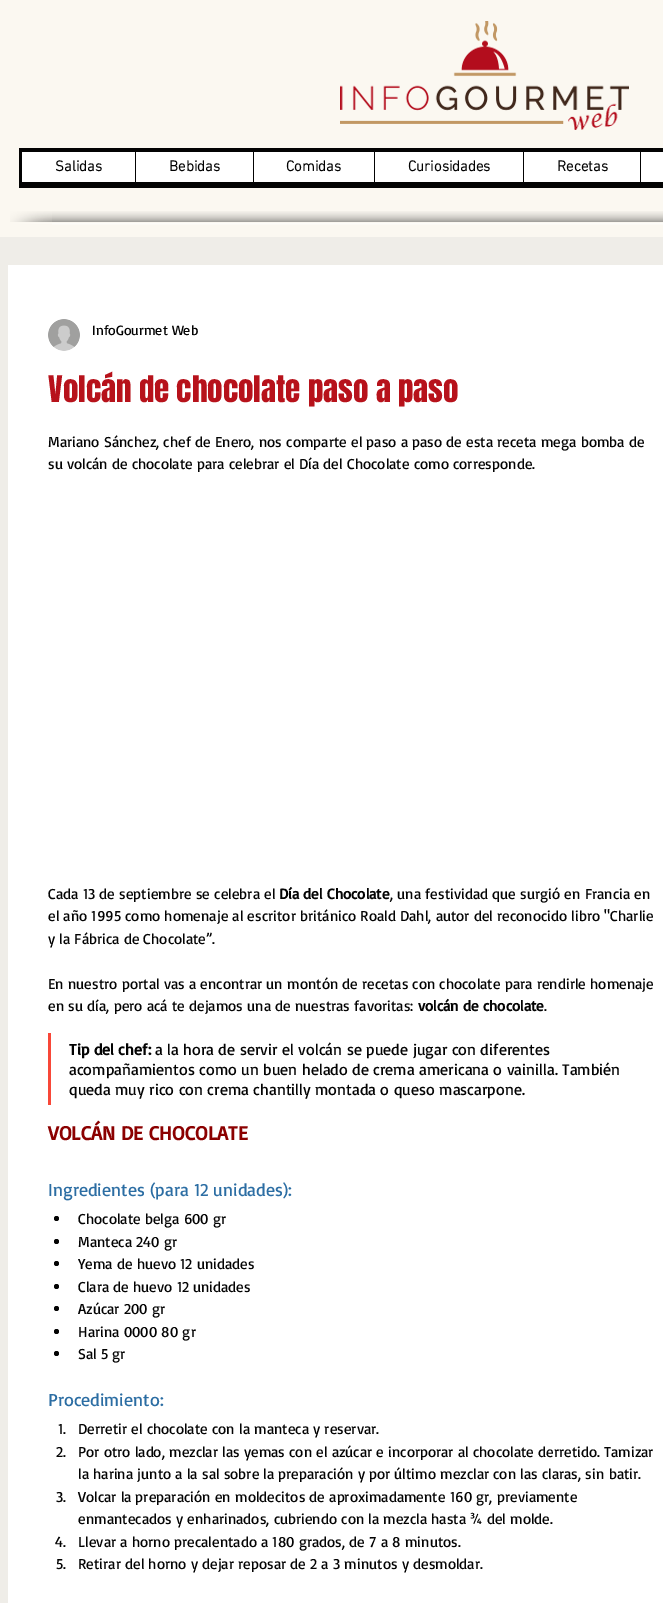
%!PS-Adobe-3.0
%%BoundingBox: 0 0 663 1603
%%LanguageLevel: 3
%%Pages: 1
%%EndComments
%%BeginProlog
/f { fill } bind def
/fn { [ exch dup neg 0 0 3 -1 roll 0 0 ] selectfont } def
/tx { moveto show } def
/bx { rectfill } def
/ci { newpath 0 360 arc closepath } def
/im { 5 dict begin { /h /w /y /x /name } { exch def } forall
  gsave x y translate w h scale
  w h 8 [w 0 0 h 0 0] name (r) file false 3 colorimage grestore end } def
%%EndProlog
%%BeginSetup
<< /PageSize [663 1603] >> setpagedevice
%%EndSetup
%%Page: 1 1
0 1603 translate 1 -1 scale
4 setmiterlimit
0.984 0.973 0.945 setrgbcolor
0 0 663 1603 bx
(image0.raw) 340 21 289 109 im
0.012 setgray
19 148 644 40 bx
1 setgray
22 152 641 30 bx
/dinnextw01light-Bold 15 fn
0.012 setgray
(Salidas) 55 171 tx
135 152 1 30 bx
(Bebidas) 169 171 tx
253 152 1 30 bx
(Comidas) 286 171 tx
374 152 1 30 bx
(Curiosidades) 408 171 tx
523 152 1 30 bx
(Recetas) 557 171 tx
640 152 1 30 bx
(image1.raw) 52 211 611 14 im
(image2.raw) 10 211 42 13 im
0.937 0.929 0.91 setrgbcolor
0 237 663 1366 bx
1 setgray
8 265 655 1338 bx
(image3.raw) 48 319 32 32 im
/Basic-Regular 14 fn
0.012 setgray
(InfoGourmet Web) 92 335 tx
/Anton-Regular 31 fn
0.718 0.071 0.106 setrgbcolor
(Volcán de chocolate paso a paso) 48 402 tx
/Basic-Regular 15 fn
0.012 setgray
(Mariano Sánchez, chef de Enero, nos comparte el paso a paso de esta receta mega bomba de) 48 447 tx
(su volcán de chocolate para celebrar el Día del Chocolate como corresponde.) 48 469 tx
(Cada 13 de septiembre se celebra el) 48 899 tx
/Basic-Bold 15 fn
(Día del Chocolate) 279 899 tx
/Basic-Regular 15 fn
(, una festividad que surgió en Francia en) 390 899 tx
(el año 1995 como homenaje al escritor británico Roald Dahl, autor del reconocido libro "Charlie) 48 921 tx
(y la Fábrica de Chocolate”.) 48 944 tx
(En nuestro portal vas a encontrar un montón de recetas con chocolate para rendirle homenaje) 48 989 tx
(en su día, pero acá te dejamos una de nuestras favoritas:) 48 1011 tx
/Basic-Bold 15 fn
(volcán de chocolate) 418 1011 tx
/Basic-Regular 15 fn
(.) 544 1011 tx
0.973 0.278 0.22 setrgbcolor
48 1033 3 72 bx
/Basic-Bold 16 fn
0.012 setgray
(Tip del chef:) 69 1055 tx
/Basic-Regular 16 fn
(a la hora de servir el volcán se puede jugar con diferentes) 155 1055 tx
(acompañamientos como un buen helado de crema americana o vainilla. También) 69 1075 tx
(queda muy rico con crema chantilly montada o queso mascarpone.) 69 1095 tx
/Basic-Bold 20 fn
0.545 0 0 setrgbcolor
(VOLCÁN DE CHOCOLATE) 48 1140 tx
/Basic-Regular 18 fn
0.169 0.427 0.639 setrgbcolor
(Ingredientes \(para 12 unidades\):) 48 1196 tx
0.012 setgray
56.5 1218.5 2.5 ci f
/Basic-Regular 15 fn
(Chocolate belga 600 gr) 78 1224 tx
56.5 1241.5 2.5 ci f
(Manteca 240 gr) 78 1247 tx
56.5 1263.5 2.5 ci f
(Yema de huevo 12 unidades) 78 1269 tx
56.5 1286.5 2.5 ci f
(Clara de huevo 12 unidades) 78 1292 tx
56.5 1308.5 2.5 ci f
(Azúcar 200 gr) 78 1314 tx
56.5 1331.5 2.5 ci f
(Harina 0000 80 gr) 78 1337 tx
56.5 1353.5 2.5 ci f
(Sal 5 gr) 78 1359 tx
/Basic-Regular 18 fn
0.169 0.427 0.639 setrgbcolor
(Procedimiento:) 48 1406 tx
/Basic-Regular 15 fn
0.012 setgray
(1.) 58 1434 tx
(Derretir el chocolate con la manteca y reservar.) 78 1434 tx
(2.) 56 1457 tx
(Por otro lado, mezclar las yemas con el azúcar e incorporar al chocolate derretido. Tamizar) 78 1457 tx
(la harina junto a la sal sobre la preparación y por último mezclar con las claras, sin batir.) 78 1479 tx
(3.) 56 1502 tx
(Volcar la preparación en moldecitos de aproximadamente 160 gr, previamente) 78 1502 tx
(enmantecados y enharinados, cubriendo con la mezcla hasta ¾ del molde.) 78 1524 tx
(4.) 55 1547 tx
(Llevar a horno precalentado a 180 grados, de 7 a 8 minutos.) 78 1547 tx
(5.) 56 1569 tx
(Retirar del horno y dejar reposar de 2 a 3 minutos y desmoldar.) 78 1569 tx
showpage
%%EOF
